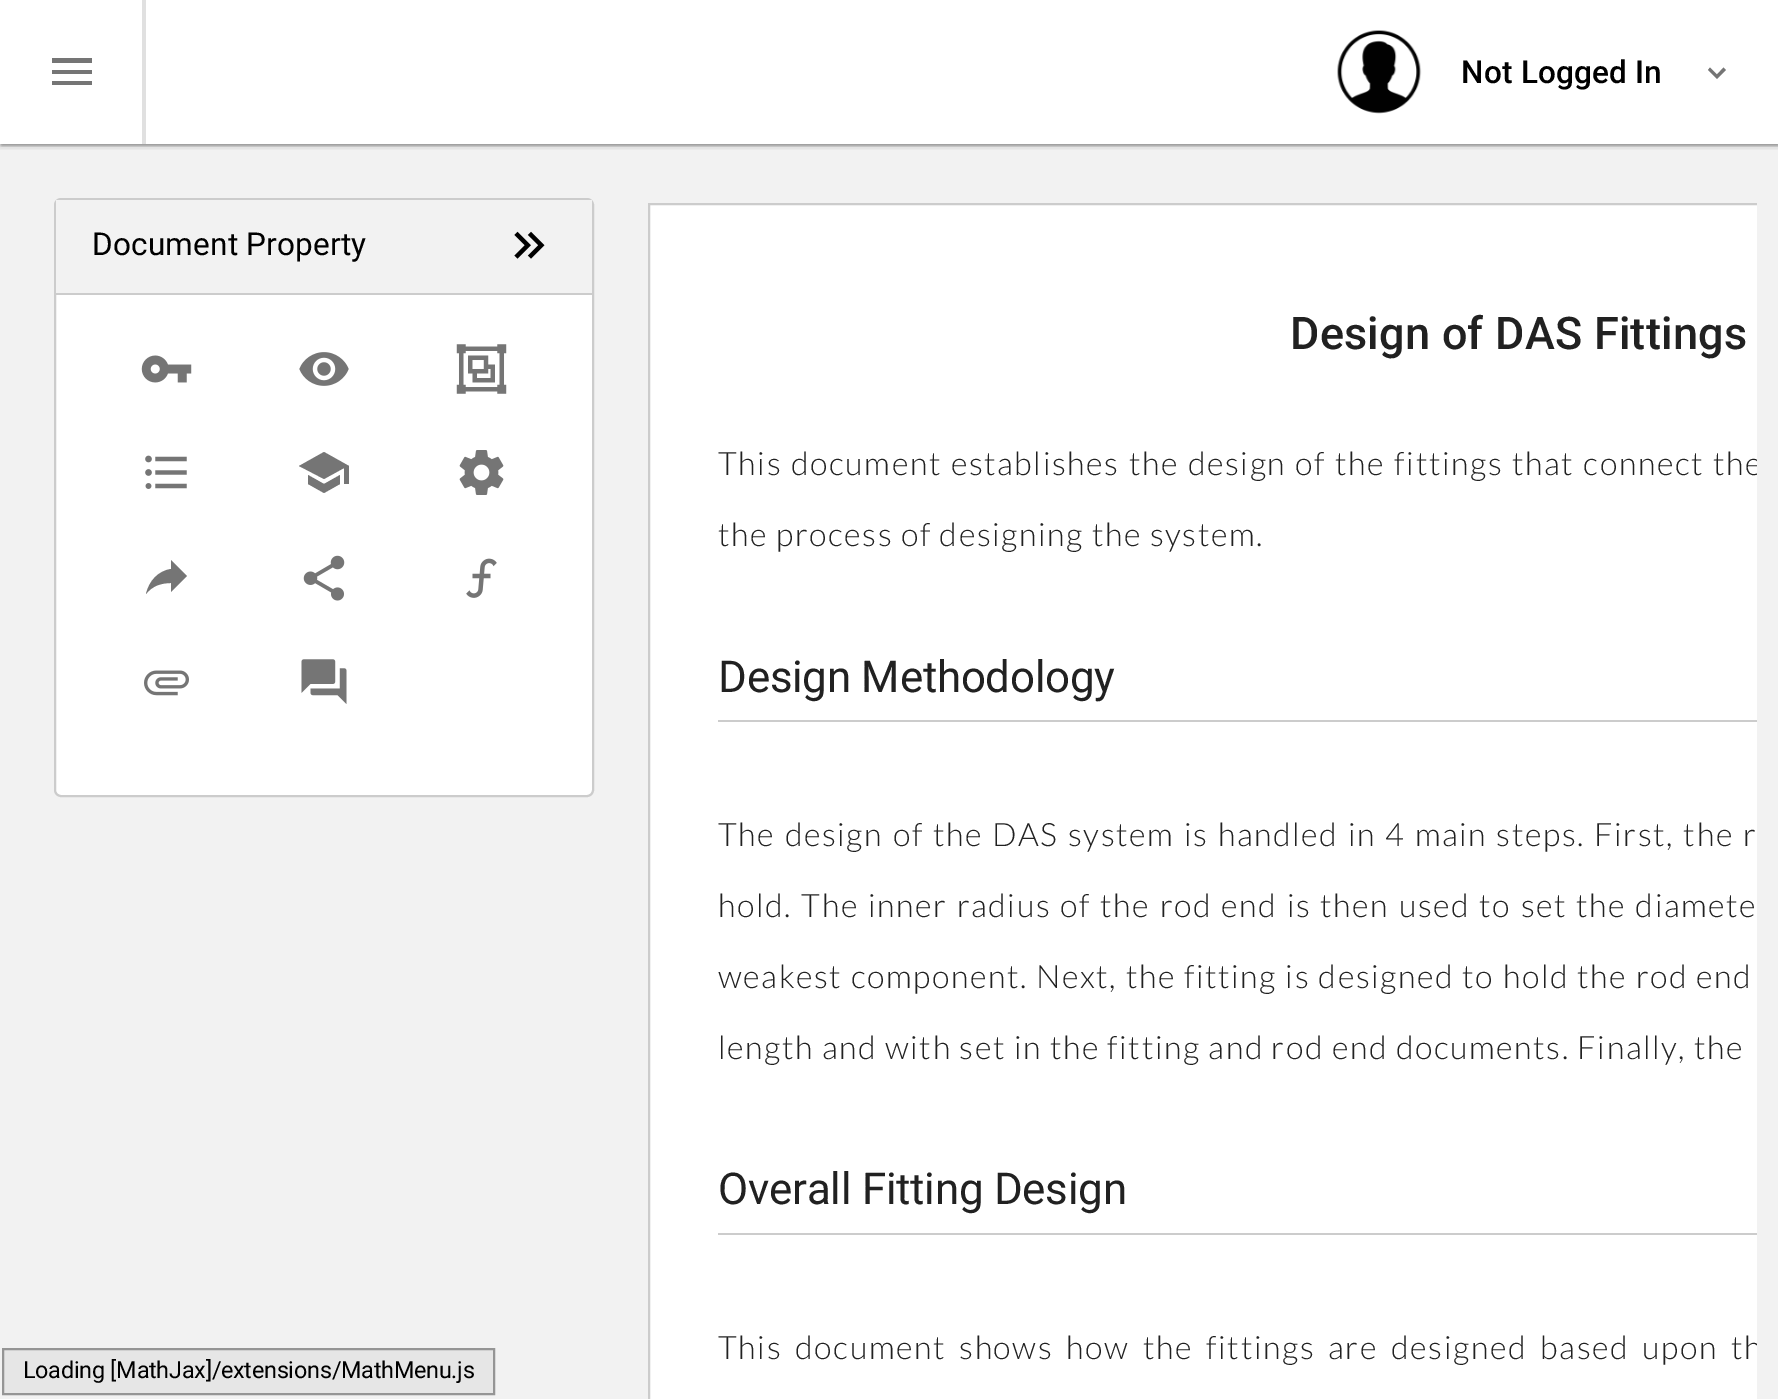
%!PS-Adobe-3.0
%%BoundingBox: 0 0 1778 1399
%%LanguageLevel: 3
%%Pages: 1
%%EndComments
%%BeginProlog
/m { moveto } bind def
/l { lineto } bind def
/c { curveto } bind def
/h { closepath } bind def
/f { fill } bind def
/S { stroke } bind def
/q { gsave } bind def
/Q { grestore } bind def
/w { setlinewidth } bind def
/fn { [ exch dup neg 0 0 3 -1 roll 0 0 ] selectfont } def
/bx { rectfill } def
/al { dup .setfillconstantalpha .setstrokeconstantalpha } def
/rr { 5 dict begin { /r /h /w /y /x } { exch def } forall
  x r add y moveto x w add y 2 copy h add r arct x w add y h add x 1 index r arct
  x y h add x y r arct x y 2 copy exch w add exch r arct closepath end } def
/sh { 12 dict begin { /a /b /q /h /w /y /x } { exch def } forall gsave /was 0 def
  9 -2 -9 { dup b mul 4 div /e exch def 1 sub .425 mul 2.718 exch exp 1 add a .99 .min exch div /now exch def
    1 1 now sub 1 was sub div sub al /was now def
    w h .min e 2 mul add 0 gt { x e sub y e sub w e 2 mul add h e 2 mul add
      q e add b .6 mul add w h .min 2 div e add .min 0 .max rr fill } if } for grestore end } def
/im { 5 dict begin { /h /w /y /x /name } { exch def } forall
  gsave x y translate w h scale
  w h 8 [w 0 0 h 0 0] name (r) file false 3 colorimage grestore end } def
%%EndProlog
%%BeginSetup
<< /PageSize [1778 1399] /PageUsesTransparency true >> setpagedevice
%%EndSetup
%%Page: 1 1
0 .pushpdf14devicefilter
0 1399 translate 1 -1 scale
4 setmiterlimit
1 setgray
0 0 1778 1399 bx
0.949 setgray
0 144 1778 1255 bx
q
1 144 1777 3 rectclip
0 setgray
2 7 1776 139 0 1 0.12 sh
Q
q
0 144 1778 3 rectclip
0 setgray
0 2 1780 144 0 1 0.14 sh
Q
q
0 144 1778 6 rectclip
0 setgray
0 2 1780 144 0 3.5 0.2 sh
Q
0.459 setgray
52 58 m 92 58 l 92 63 l 52 63 l h 52 70 m 92 70 l 92 74 l 52 74 l h 52 81 m 92 81 l 92 85 l 52 85 l h f
0.878 setgray
142 0 4 144 bx
(image0.raw) 1337 30 85 84 im
/Roboto-Medium 31.5 fn
0 setgray
1461 83 m 0.25 0 (Not Logged In) ashow
0.459 setgray
1710 67.5 m 1717 74.5 l 1723.5 67.5 l 1726 70 l 1717 79 l 1708 70 l h f
1 setgray
55 199 538 597 6 rr q f Q
0.8 setgray
2 w
S
0.949 setgray
56 200 536 93 bx
0.8 setgray
56 293 536 2 bx
/Roboto-Regular 31.5 fn
0 setgray
92 255 m 0.2 0 (Document Property) ashow
(image1.raw) 514 231 31 28 im
(image2.raw) 141 355 51 28 im
(image3.raw) 299 352 50 34 im
(image4.raw) 456 344 51 50 im
(image5.raw) 145 455 42 34 im
0.459 setgray
324 452 m 299 466 l 324 479 l 344 468 l 344 484 l 349 484 l 349 466 l h 308 475 m 308 484 l 324 493 l 340 484 l 340 475 l 324 484 l h f
(image6.raw) 459 450 45 45 im
187 576 m 171 560 l 171 569 l 158 571 149 581 146 594 c 152 586 161 583 171 583 c 171 592 l h f
(image7.raw) 303 555 42 46 im
(image8.raw) 466 558 31 40 im
(image9.raw) 144 670 45 26 im
(image10.raw) 301 659 46 45 im
1 setgray
650 205 1107 1194 bx
q
626 144 1131 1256 rectclip
0.8 setgray
649 204 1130 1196 rectstroke
Q
/Roboto-Medium 45 fn
0.129 setgray
1290 349 m 0.25 0 (Design of DAS Fittings) ashow
q
707 385 1050 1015 rectclip
/Lato-Light 32.2 fn
718 475 m 1.25 0 32 1.57 0 (This document establishes the design of the fittings that connect the) awidthshow
Q
/Lato-Light 32.2 fn
718 546 m 1.57 0 (the process of designing the system.) ashow
0.8 setgray
718 720 1039 2 bx
/Roboto-Regular 43.9 fn
0.129 setgray
718 692 m -0.25 0 (Design Methodology) ashow
/Lato-Light 32.2 fn
718 846 m 1.5 0 32 1.57 0 (The design of the DAS system is handled in 4 main steps. First, the r) awidthshow
718 917 m 1.4 0 32 1.57 0 (hold. The inner radius of the rod end is then used to set the diamete) awidthshow
718 988 m 0.5 0 32 1.57 0 (weakest component. Next, the fitting is designed to hold the rod end) awidthshow
718 1059 m 1.57 0 (length and with set in the fitting and rod end documents. Finally, the) ashow
0.8 setgray
718 1233 1039 2 bx
/Roboto-Regular 43.9 fn
0.129 setgray
718 1204 m -0.25 0 (Overall Fitting Design) ashow
q
707 385 1050 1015 rectclip
/Lato-Light 32.2 fn
718 1359 m 5.5 0 32 1.57 0 (This document shows how the fittings are designed based upon th) awidthshow
Q
0.902 setgray
3 1349 m 494 1349 l 494 1394 l 3 1394 l h q f Q
0.584 setgray
S
/Roboto-Regular 23.4 fn
0 setgray
23 1378 m -0.25 0 (Loading [MathJax]/extensions/MathMenu.js) ashow
.poppdf14devicefilter showpage
%%EOF
